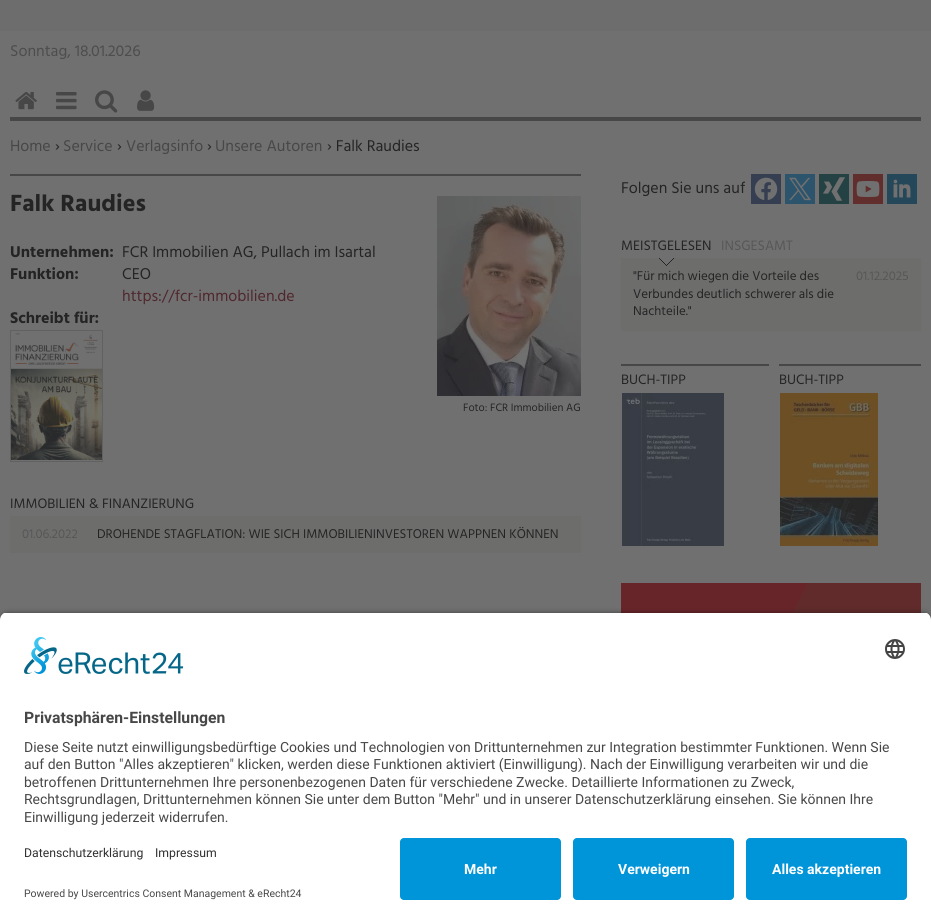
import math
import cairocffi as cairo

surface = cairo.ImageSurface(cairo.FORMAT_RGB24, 931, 924)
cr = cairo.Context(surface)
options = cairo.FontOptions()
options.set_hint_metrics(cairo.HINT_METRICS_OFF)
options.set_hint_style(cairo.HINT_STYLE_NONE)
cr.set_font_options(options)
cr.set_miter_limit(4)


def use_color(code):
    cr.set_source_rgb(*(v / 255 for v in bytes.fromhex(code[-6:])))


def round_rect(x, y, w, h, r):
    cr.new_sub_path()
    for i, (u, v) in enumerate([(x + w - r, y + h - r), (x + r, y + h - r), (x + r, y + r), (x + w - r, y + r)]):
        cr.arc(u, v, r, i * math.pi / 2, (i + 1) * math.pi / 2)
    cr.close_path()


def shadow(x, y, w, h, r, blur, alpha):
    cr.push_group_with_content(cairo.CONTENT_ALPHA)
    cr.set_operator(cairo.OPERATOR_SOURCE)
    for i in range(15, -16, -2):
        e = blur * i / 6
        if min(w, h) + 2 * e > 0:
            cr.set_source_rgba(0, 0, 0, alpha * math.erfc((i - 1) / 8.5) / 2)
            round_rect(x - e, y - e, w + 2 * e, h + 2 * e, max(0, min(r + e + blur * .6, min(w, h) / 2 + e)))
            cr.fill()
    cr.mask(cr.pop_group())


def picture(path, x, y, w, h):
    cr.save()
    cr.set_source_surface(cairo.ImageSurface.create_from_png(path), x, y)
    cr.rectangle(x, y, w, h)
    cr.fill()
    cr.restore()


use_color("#6d6d6d")
cr.paint()
use_color("#707070")
cr.rectangle(0, 31, 931, 589)
cr.fill()
cr.select_font_face("Hind")
cr.set_font_size(16)
use_color("#4d4d4d")
cr.move_to(10, 56)
cr.show_text("Sonntag, 18.01.2026")
use_color("#474747")
cr.rectangle(10, 117, 911, 4)
cr.fill()
picture("img1.png", 15, 92, 22, 18)
picture("img2.png", 56, 92, 21, 18)
picture("img3.png", 95, 90, 23, 23)
picture("img4.png", 137, 90, 18, 21)
cr.move_to(10, 151)
cr.show_text("Home")
use_color("#242424")
cr.move_to(55, 151)
cr.show_text("›")
use_color("#474747")
cr.move_to(63, 151)
cr.show_text("Service")
use_color("#242424")
cr.move_to(117, 151)
cr.show_text("›")
use_color("#474747")
cr.move_to(126, 151)
cr.show_text("Verlagsinfo")
use_color("#242424")
cr.move_to(207, 151)
cr.show_text("›")
use_color("#474747")
cr.move_to(215, 151)
cr.show_text("Unsere Autoren")
use_color("#242424")
cr.move_to(327, 151)
cr.show_text("› Falk Raudies")
use_color("#474747")
cr.rectangle(10, 174, 571, 2)
cr.fill()
cr.select_font_face("Hind", cairo.FONT_SLANT_NORMAL, cairo.FONT_WEIGHT_BOLD)
cr.set_font_size(24)
use_color("#242424")
cr.move_to(10, 211)
cr.show_text("Falk Raudies")
cr.set_font_size(16)
cr.move_to(10, 257)
cr.show_text("Unternehmen:")
cr.select_font_face("Hind")
cr.move_to(122, 257)
cr.show_text("FCR Immobilien AG, Pullach im Isartal")
cr.select_font_face("Hind", cairo.FONT_SLANT_NORMAL, cairo.FONT_WEIGHT_BOLD)
cr.move_to(10, 279)
cr.show_text("Funktion:")
cr.select_font_face("Hind")
cr.move_to(122, 279)
cr.show_text("CEO")
use_color("#50272e")
cr.move_to(122, 301)
cr.show_text("https://fcr-immobilien.de")
picture("img5.png", 437, 196, 144, 200)
cr.set_font_size(11)
use_color("#242424")
cr.move_to(463, 411)
cr.show_text("Foto: FCR Immobilien AG")
cr.select_font_face("Hind", cairo.FONT_SLANT_NORMAL, cairo.FONT_WEIGHT_BOLD)
cr.set_font_size(16)
cr.move_to(10, 323)
cr.show_text("Schreibt für:")
picture("img6.png", 11, 333, 91, 127)
cr.rectangle(10.5, 330.5, 92, 131)
use_color("#616161")
cr.set_line_width(1)
cr.stroke()
cr.select_font_face("Hind")
cr.set_font_size(14)
use_color("#242424")
cr.move_to(10, 508)
cr.show_text("IMMOBILIEN & FINANZIERUNG")
use_color("#6d6d6c")
cr.rectangle(10, 516, 571, 37)
cr.fill()
cr.set_font_size(13)
use_color("#575757")
cr.move_to(22, 538)
cr.show_text("01.06.2022")
use_color("#242424")
cr.move_to(97, 538)
cr.show_text("DROHENDE STAGFLATION: WIE SICH IMMOBILIENINVESTOREN WAPPNEN KÖNNEN")
cr.set_font_size(16)
cr.move_to(621, 193)
cr.show_text("Folgen Sie uns auf")
use_color("#353f51")
cr.rectangle(751, 174, 30, 30)
cr.fill()
picture("img7.png", 754, 177, 24, 24)
use_color("#2c546c")
cr.rectangle(785, 174, 30, 30)
cr.fill()
picture("img8.png", 789, 177, 22, 24)
use_color("#244243")
cr.rectangle(819, 174, 30, 30)
cr.fill()
picture("img9.png", 823, 177, 22, 24)
use_color("#612d2d")
cr.rectangle(853, 174, 30, 30)
cr.fill()
picture("img10.png", 856, 181, 24, 16)
use_color("#24475a")
cr.rectangle(887, 174, 30, 30)
cr.fill()
picture("img11.png", 893, 179, 18, 19)
use_color("#6d6d6c")
cr.rectangle(621, 258, 300, 73)
cr.fill()
picture("img12.png", 659, 258, 15, 8)
cr.set_font_size(14)
use_color("#242424")
cr.move_to(621, 250)
cr.show_text("MEISTGELESEN")
use_color("#575757")
cr.move_to(721, 250)
cr.show_text("INSGESAMT")
cr.set_font_size(13)
use_color("#242424")
cr.move_to(633, 280)
cr.show_text("\"Für mich wiegen die Vorteile des")
cr.move_to(633, 298)
cr.show_text("Verbundes deutlich schwerer als die")
cr.move_to(633, 315)
cr.show_text("Nachteile.\"")
use_color("#575757")
cr.move_to(856, 280)
cr.show_text("01.12.2025")
use_color("#474747")
cr.rectangle(621, 364, 148, 2)
cr.fill()
cr.set_font_size(14)
use_color("#242424")
cr.move_to(621, 384)
cr.show_text("BUCH-TIPP")
picture("img13.png", 622, 393, 102, 153)
use_color("#474747")
cr.rectangle(779, 364, 142, 2)
cr.fill()
use_color("#242424")
cr.move_to(779, 384)
cr.show_text("BUCH-TIPP")
picture("img14.png", 780, 393, 98, 153)
picture("img15.png", 621, 583, 300, 30)
use_color("#000000")
shadow(0, 615, 931, 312, 8, 3.5, 0.8)
cr.save()
cr.new_path()
cr.move_to(8, 612)
cr.line_to(923, 612)
cr.curve_to(927.5, 612, 931, 615.5, 931, 620)
cr.line_to(931, 830)
cr.line_to(0, 830)
cr.line_to(0, 620)
cr.curve_to(0, 615.5, 3.5, 612, 8, 612)
cr.close_path()
cr.clip()
use_color("#ffffff")
cr.rectangle(0, 613, 931, 217)
cr.fill()
cr.restore()
picture("img16.png", 24, 637, 160, 37)
picture("img17.png", 885, 639, 20, 20)
cr.select_font_face("Roboto", cairo.FONT_SLANT_NORMAL, cairo.FONT_WEIGHT_BOLD)
cr.set_font_size(15.75)
use_color("#474747")
cr.move_to(24, 723)
cr.show_text("Privatsphären-Einstellungen")
cr.select_font_face("Roboto")
cr.set_font_size(14)
cr.move_to(24, 752)
cr.show_text("Diese Seite nutzt einwilligungsbedürftige Cookies und Technologien von Drittunternehmen zur Integration bestimmter Funktionen. Wenn Sie")
cr.move_to(24, 769)
cr.show_text("auf den Button \"Alles akzeptieren\" klicken, werden diese Funktionen aktiviert (Einwilligung). Nach der Einwilligung verarbeiten wir und die")
cr.move_to(24, 787)
cr.show_text("betroffenen Drittunternehmen Ihre personenbezogenen Daten für verschiedene Zwecke. Detaillierte Informationen zu Zweck,")
cr.move_to(24, 804)
cr.show_text("Rechtsgrundlagen, Drittunternehmen können Sie unter dem Button \"Mehr\" und in unserer Datenschutzerklärung einsehen. Sie können Ihre")
cr.move_to(24, 822)
cr.show_text("Einwilligung jederzeit widerrufen.")
use_color("#ffffff")
cr.rectangle(0, 830, 931, 94)
cr.fill()
cr.set_font_size(12.25)
use_color("#303030")
cr.move_to(24, 857)
cr.show_text("Datenschutzerklärung")
cr.move_to(155, 857)
cr.show_text("Impressum")
cr.set_font_size(10.5)
use_color("#474747")
cr.move_to(24, 897)
cr.show_text("Powered by Usercentrics Consent Management & eRecht24")
use_color("#0094d8")
round_rect(400, 838, 161, 62, 4)
cr.fill()
cr.select_font_face("Roboto", cairo.FONT_SLANT_NORMAL, cairo.FONT_WEIGHT_BOLD)
cr.set_font_size(14)
use_color("#ffffff")
cr.move_to(464, 874)
cr.show_text("Mehr")
use_color("#0094d8")
round_rect(573, 838, 161, 62, 4)
cr.fill()
use_color("#ffffff")
cr.move_to(618, 874)
cr.show_text("Verweigern")
use_color("#0094d8")
round_rect(746, 838, 161, 62, 4)
cr.fill()
use_color("#ffffff")
cr.move_to(772, 874)
cr.show_text("Alles akzeptieren")
surface.write_to_png("result.png")
